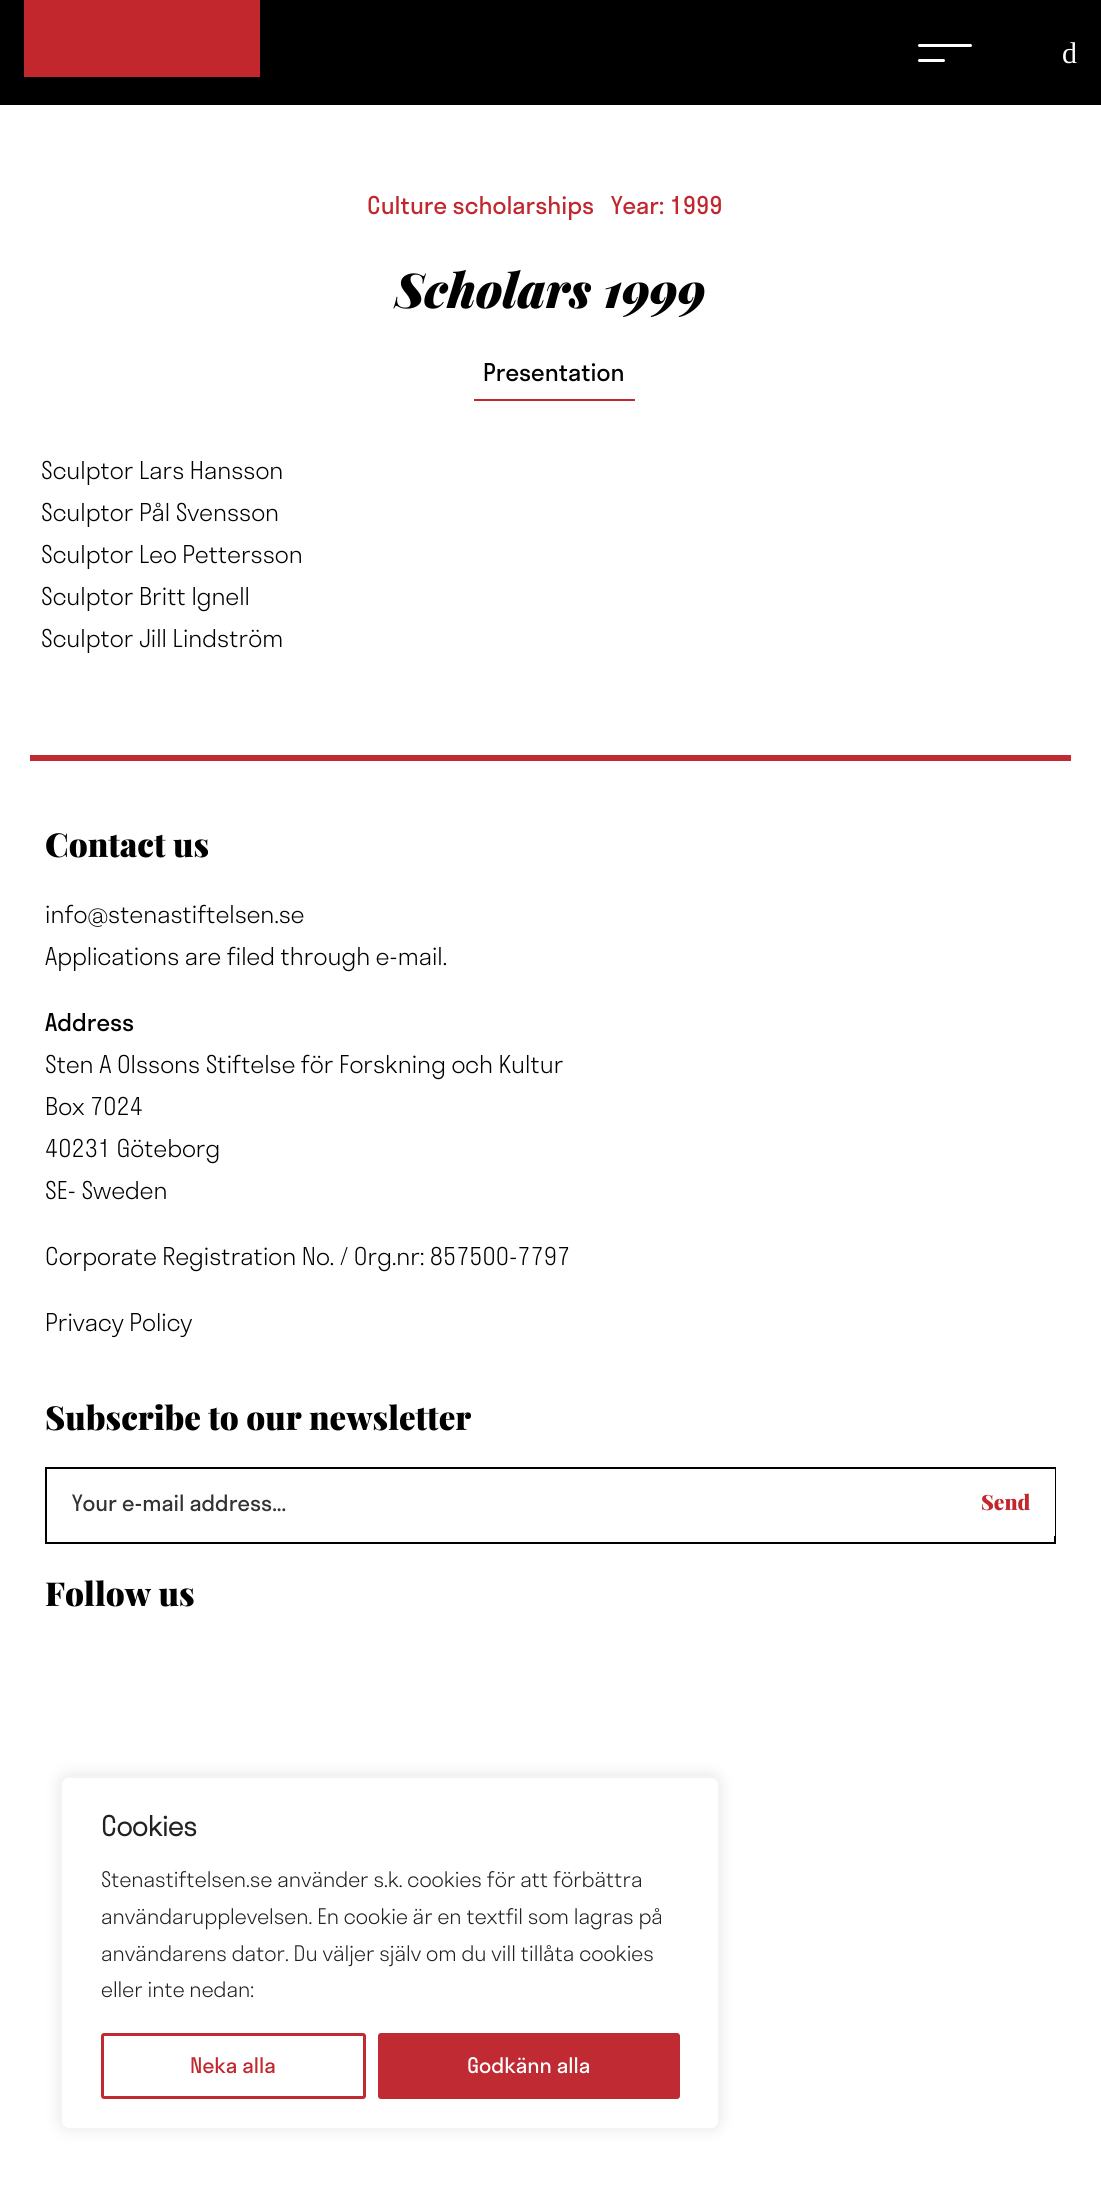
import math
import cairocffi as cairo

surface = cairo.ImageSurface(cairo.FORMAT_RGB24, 1101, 2190)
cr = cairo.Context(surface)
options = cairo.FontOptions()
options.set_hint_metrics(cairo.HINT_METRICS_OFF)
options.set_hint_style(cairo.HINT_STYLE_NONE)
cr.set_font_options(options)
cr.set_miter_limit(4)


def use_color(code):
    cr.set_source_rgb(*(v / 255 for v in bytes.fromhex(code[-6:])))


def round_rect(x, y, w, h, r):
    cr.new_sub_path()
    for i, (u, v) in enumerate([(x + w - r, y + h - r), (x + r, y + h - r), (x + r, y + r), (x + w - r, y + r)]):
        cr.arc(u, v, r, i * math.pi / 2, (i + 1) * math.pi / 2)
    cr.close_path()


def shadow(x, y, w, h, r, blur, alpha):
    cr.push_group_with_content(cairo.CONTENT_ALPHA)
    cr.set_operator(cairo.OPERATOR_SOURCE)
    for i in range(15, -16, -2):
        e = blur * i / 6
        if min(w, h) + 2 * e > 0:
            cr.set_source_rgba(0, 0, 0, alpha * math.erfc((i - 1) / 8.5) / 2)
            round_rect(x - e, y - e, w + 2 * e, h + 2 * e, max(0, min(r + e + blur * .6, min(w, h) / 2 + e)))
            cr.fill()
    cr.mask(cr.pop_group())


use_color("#ffffff")
cr.paint()
use_color("#000000")
cr.rectangle(0, 0, 1101, 105)
cr.fill()
use_color("#c1272d")
cr.rectangle(24, 0, 236, 77)
cr.fill()
use_color("#ffffff")
round_rect(918, 44, 54, 3, 1.5)
cr.fill()
round_rect(918, 59, 27, 3, 1.5)
cr.fill()
cr.select_font_face("Liberation Serif")
cr.set_font_size(30)
cr.move_to(1062, 63)
cr.show_text("d")
cr.select_font_face("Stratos")
cr.set_font_size(24)
use_color("#c1272d")
cr.move_to(367, 214)
cr.show_text("Culture scholarships")
cr.move_to(611, 214)
cr.show_text("Year: 1999")
cr.select_font_face("Playfair Display Black", cairo.FONT_SLANT_ITALIC)
cr.set_font_size(48)
use_color("#000000")
cr.move_to(395, 308)
cr.show_text("Scholars 1999")
use_color("#c1272d")
cr.rectangle(474, 399, 161, 2)
cr.fill()
cr.select_font_face("Stratos")
cr.set_font_size(24)
use_color("#000000")
cr.move_to(483, 381)
cr.show_text("Presentation")
cr.select_font_face("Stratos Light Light")
cr.move_to(41, 479)
cr.show_text("Sculptor Lars Hansson")
cr.move_to(41, 521)
cr.show_text("Sculptor Pål Svensson")
cr.move_to(41, 563)
cr.show_text("Sculptor Leo Pettersson")
cr.move_to(41, 605)
cr.show_text("Sculptor Britt Ignell")
cr.move_to(41, 647)
cr.show_text("Sculptor Jill Lindström")
use_color("#c02a32")
cr.rectangle(30, 755, 1041, 6)
cr.fill()
cr.select_font_face("Playfair Display Black")
cr.set_font_size(33)
use_color("#000000")
cr.move_to(45, 857)
cr.show_text("Contact us")
cr.select_font_face("Stratos Light Light")
cr.set_font_size(24)
cr.move_to(45, 923)
cr.show_text("info@stenastiftelsen.se")
cr.move_to(45, 965)
cr.show_text("Applications are filed through e-mail.")
cr.select_font_face("Stratos")
cr.move_to(45, 1031)
cr.show_text("Address")
cr.select_font_face("Stratos Light Light")
cr.move_to(45, 1073)
cr.show_text("Sten A Olssons Stiftelse för Forskning och Kultur")
cr.move_to(45, 1115)
cr.show_text("Box 7024")
cr.move_to(45, 1157)
cr.show_text("40231 Göteborg")
cr.move_to(45, 1199)
cr.show_text("SE- Sweden")
cr.move_to(45, 1265)
cr.show_text("Corporate Registration No. / Org.nr: 857500-7797")
cr.move_to(45, 1331)
cr.show_text("Privacy Policy")
cr.select_font_face("Playfair Display Black")
cr.set_font_size(33)
cr.move_to(45, 1430)
cr.show_text("Subscribe to our newsletter")
cr.rectangle(46, 1468, 1009, 75)
cr.stroke()
use_color("#ffffff")
cr.rectangle(1054, 1469, 1, 67)
cr.fill()
cr.select_font_face("Stratos")
cr.set_font_size(22)
use_color("#333333")
cr.move_to(72, 1511)
cr.show_text("Your e-mail address...")
cr.select_font_face("Playfair Display Black")
cr.set_font_size(21)
use_color("#c1272d")
cr.move_to(981, 1510)
cr.show_text("Send")
cr.set_font_size(33)
use_color("#000000")
cr.move_to(45, 1606)
cr.show_text("Follow us")
use_color("#acabab")
shadow(60, 1775, 660, 354, 9, 7.5, 0.3)
use_color("#ffffff")
round_rect(61, 1777, 658, 352, 8)
cr.fill_preserve()
use_color("#f4f4f4")
cr.stroke()
cr.select_font_face("Stratos Light", cairo.FONT_SLANT_NORMAL, cairo.FONT_WEIGHT_BOLD)
cr.set_font_size(27)
use_color("#212121")
cr.move_to(101, 1836)
cr.show_text("Cookies")
cr.select_font_face("Stratos Light Light")
cr.set_font_size(21)
cr.move_to(101, 1887)
cr.show_text("Stenastiftelsen.se använder s.k. cookies för att förbättra")
cr.move_to(101, 1924)
cr.show_text("användarupplevelsen. En cookie är en textfil som lagras på")
cr.move_to(101, 1961)
cr.show_text("användarens dator. Du väljer själv om du vill tillåta cookies")
cr.move_to(101, 1997)
cr.show_text("eller inte nedan:")
round_rect(102.5, 2034.5, 262, 63, 1.5)
use_color("#c02a32")
cr.set_line_width(3)
cr.stroke()
cr.select_font_face("Stratos")
use_color("#c1272d")
cr.move_to(190, 2073)
cr.show_text("Neka alla")
use_color("#c02a32")
round_rect(379.5, 2034.5, 299, 63, 1.5)
cr.fill_preserve()
cr.stroke()
use_color("#ffffff")
cr.move_to(467, 2073)
cr.show_text("Godkänn alla")
surface.write_to_png("result.png")
